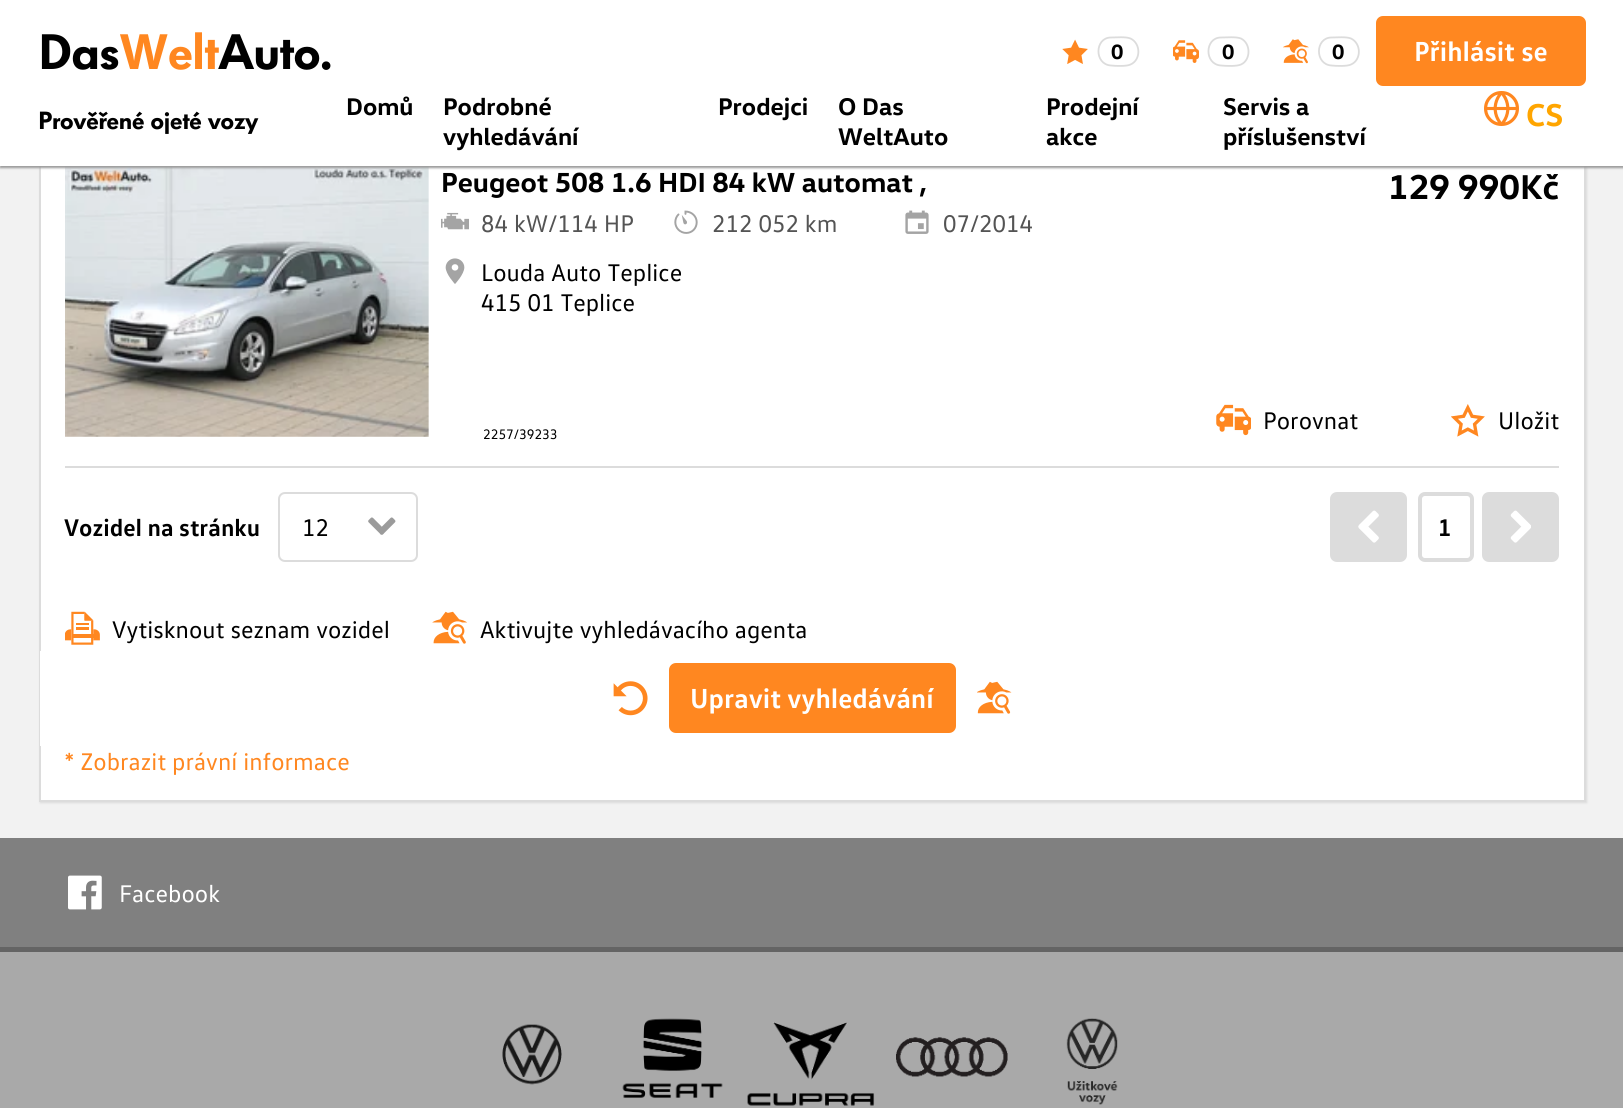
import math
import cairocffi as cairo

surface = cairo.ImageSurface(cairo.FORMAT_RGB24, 1623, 1108)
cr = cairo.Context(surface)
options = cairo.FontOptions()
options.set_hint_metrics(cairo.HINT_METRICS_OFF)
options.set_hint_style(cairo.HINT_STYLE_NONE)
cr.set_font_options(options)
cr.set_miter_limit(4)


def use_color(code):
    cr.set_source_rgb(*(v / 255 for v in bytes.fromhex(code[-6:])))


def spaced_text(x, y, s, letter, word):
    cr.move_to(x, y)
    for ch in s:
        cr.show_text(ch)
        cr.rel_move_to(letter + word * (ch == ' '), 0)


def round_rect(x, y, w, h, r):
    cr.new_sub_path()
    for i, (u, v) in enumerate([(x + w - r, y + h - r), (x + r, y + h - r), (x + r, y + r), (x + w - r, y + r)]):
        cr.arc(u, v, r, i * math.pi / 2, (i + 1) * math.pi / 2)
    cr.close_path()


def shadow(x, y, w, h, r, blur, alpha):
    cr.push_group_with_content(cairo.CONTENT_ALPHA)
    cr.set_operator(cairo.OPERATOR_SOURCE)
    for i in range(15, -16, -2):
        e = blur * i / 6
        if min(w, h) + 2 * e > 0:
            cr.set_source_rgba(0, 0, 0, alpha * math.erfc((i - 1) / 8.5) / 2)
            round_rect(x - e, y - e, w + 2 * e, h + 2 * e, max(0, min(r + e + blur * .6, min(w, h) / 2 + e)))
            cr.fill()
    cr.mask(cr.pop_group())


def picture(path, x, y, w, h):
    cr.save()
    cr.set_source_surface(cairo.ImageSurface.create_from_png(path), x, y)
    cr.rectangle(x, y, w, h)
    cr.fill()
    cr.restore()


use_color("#f2f2f2")
cr.paint()
use_color("#dcdcdc")
shadow(40, -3, 1547, 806, 0, 1, 1)
use_color("#ffffff")
cr.rectangle(41, 166, 1543, 634)
cr.fill()
cr.rectangle(40, -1, 1545, 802)
use_color("#dcdcdc")
cr.stroke()
picture("img6.png", 66, 324, 1, 20)
picture("img5.png", 65, 166, 364, 271)
use_color("#9b9b9b")
shadow(0, 2, 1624, 166, 0, 1, 1)
use_color("#ffffff")
cr.rectangle(0, 0, 1623, 166)
cr.fill()
cr.select_font_face("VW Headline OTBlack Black")
cr.set_font_size(49)
use_color("#000000")
spaced_text(38, 69, "Das", -1, 0)
use_color("#ff8720")
spaced_text(119, 69, "Welt", -1, 0)
use_color("#000000")
spaced_text(218, 69, "Auto.", -1, 0)
cr.set_font_size(24.5)
spaced_text(38, 129, "Prověřené ojeté vozy", -0.5, 0)
picture("img1.png", 1062, 39, 26, 25)
cr.new_path()
cr.move_to(1111, 37.5)
cr.curve_to(1116.5, 37.5, 1125.5, 36.5, 1130.5, 38.5)
cr.curve_to(1141, 43.5, 1141, 60, 1130.5, 64.5)
cr.curve_to(1126.5, 66.5, 1115.5, 66, 1111, 65.5)
cr.curve_to(1094, 64.5, 1094.5, 37.5, 1111, 37.5)
cr.close_path()
use_color("#dcdcdc")
cr.set_line_width(1.8)
cr.stroke()
cr.select_font_face("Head", cairo.FONT_SLANT_NORMAL, cairo.FONT_WEIGHT_BOLD)
cr.set_font_size(21)
use_color("#000000")
cr.move_to(1111, 59)
cr.show_text("0")
picture("img2.png", 1173, 40, 26, 23)
cr.new_path()
cr.move_to(1221, 37.5)
cr.curve_to(1226.5, 37.5, 1236, 36.5, 1241, 38.5)
cr.curve_to(1251, 43.5, 1251, 60, 1241, 64.5)
cr.curve_to(1236.5, 66.5, 1226, 66, 1221, 65.5)
cr.curve_to(1204, 64.5, 1204.5, 37.5, 1221, 37.5)
cr.close_path()
use_color("#dcdcdc")
cr.stroke()
use_color("#000000")
cr.move_to(1222, 59)
cr.show_text("0")
picture("img3.png", 1283, 39, 26, 25)
cr.new_path()
cr.move_to(1331.5, 37.5)
cr.curve_to(1337, 37.5, 1346, 36.5, 1351, 38.5)
cr.curve_to(1361.5, 43.5, 1361.5, 60, 1351, 64.5)
cr.curve_to(1347, 66.5, 1336, 66, 1331.5, 65.5)
cr.curve_to(1314.5, 64.5, 1315, 37.5, 1331.5, 37.5)
cr.close_path()
use_color("#dcdcdc")
cr.stroke()
use_color("#000000")
cr.move_to(1332, 59)
cr.show_text("0")
use_color("#ff8720")
round_rect(1378, 18, 206, 66, 5)
cr.fill_preserve()
cr.set_line_width(4)
cr.stroke()
cr.select_font_face("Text", cairo.FONT_SLANT_NORMAL, cairo.FONT_WEIGHT_BOLD)
cr.set_font_size(28)
use_color("#ffffff")
cr.move_to(1414, 61)
cr.show_text("Přihlásit se")
cr.select_font_face("Head", cairo.FONT_SLANT_NORMAL, cairo.FONT_WEIGHT_BOLD)
cr.set_font_size(24.5)
use_color("#000000")
cr.move_to(346, 115)
cr.show_text("Domů")
cr.move_to(443, 115)
cr.show_text("Podrobné")
cr.move_to(443, 145)
cr.show_text("vyhledávání")
cr.move_to(718, 115)
cr.show_text("Prodejci")
cr.move_to(838, 115)
cr.show_text("O Das")
cr.move_to(838, 145)
cr.show_text("WeltAuto")
cr.move_to(1046, 115)
cr.show_text("Prodejní")
cr.move_to(1046, 145)
cr.show_text("akce")
cr.move_to(1223, 115)
cr.show_text("Servis a")
cr.move_to(1223, 145)
cr.show_text("příslušenství")
picture("img4.png", 1484, 91, 35, 35)
cr.set_font_size(32)
use_color("#ffa500")
cr.move_to(1526, 126)
cr.show_text("CS")
use_color("#dcdcdc")
cr.rectangle(65, 466, 1494, 2)
cr.fill()
cr.set_font_size(28)
use_color("#000000")
cr.move_to(441, 192)
cr.show_text("Peugeot 508 1.6 HDI 84 kW automat ,")
cr.set_font_size(35)
cr.move_to(1388, 199)
cr.show_text("129 990Kč")
picture("img7.png", 441, 212, 28, 18)
cr.select_font_face("Text")
cr.set_font_size(24.5)
use_color("#545454")
cr.move_to(481, 232)
cr.show_text("84 kW/114 HP")
picture("img8.png", 674, 210, 24, 24)
cr.move_to(712, 232)
cr.show_text("212 052 km")
picture("img9.png", 905, 210, 24, 24)
cr.move_to(943, 232)
cr.show_text("07/2014")
picture("img10.png", 445, 258, 20, 26)
use_color("#000000")
cr.move_to(481, 281)
cr.show_text("Louda Auto Teplice")
cr.move_to(481, 311)
cr.show_text("415 01 Teplice")
picture("img11.png", 1216, 404, 35, 32)
cr.move_to(1263, 429)
cr.show_text("Porovnat")
picture("img12.png", 1451, 404, 34, 33)
cr.move_to(1498, 429)
cr.show_text("Uložit")
cr.set_font_size(14)
cr.move_to(483, 439)
cr.show_text("2257/39233")
cr.select_font_face("Text", cairo.FONT_SLANT_NORMAL, cairo.FONT_WEIGHT_BOLD)
cr.set_font_size(24.5)
cr.move_to(64, 536)
cr.show_text("Vozidel na stránku")
picture("img13.png", 368, 517, 28, 18)
round_rect(279, 493, 138, 68, 6)
use_color("#dcdcdc")
cr.set_line_width(2)
cr.stroke()
cr.select_font_face("Text")
use_color("#000000")
cr.move_to(302, 536)
cr.show_text("12")
use_color("#dcdcdc")
round_rect(1330, 492, 77, 70, 7)
cr.fill()
picture("img14.png", 1358, 510, 21, 33)
round_rect(1420, 494, 52, 66, 5)
cr.set_line_width(4)
cr.stroke()
cr.select_font_face("Text", cairo.FONT_SLANT_NORMAL, cairo.FONT_WEIGHT_BOLD)
use_color("#000000")
cr.move_to(1438, 536)
cr.show_text("1")
use_color("#dcdcdc")
round_rect(1482, 492, 77, 70, 7)
cr.fill()
picture("img15.png", 1510, 510, 21, 33)
picture("img16.png", 65, 611, 35, 34)
cr.select_font_face("Text")
use_color("#000000")
cr.move_to(112, 638)
cr.show_text("Vytisknout seznam vozidel")
picture("img17.png", 432, 611, 35, 33)
cr.move_to(480, 638)
cr.show_text("Aktivujte vyhledávacího agenta")
use_color("#ffffff")
cr.rectangle(40, 651, 1, 95)
cr.fill()
picture("img18.png", 613, 681, 35, 35)
use_color("#ff8720")
round_rect(671, 665, 283, 66, 5)
cr.fill_preserve()
cr.stroke()
cr.select_font_face("Text", cairo.FONT_SLANT_NORMAL, cairo.FONT_WEIGHT_BOLD)
cr.set_font_size(28)
use_color("#ffffff")
cr.move_to(690, 708)
cr.show_text("Upravit vyhledávání")
picture("img19.png", 977, 681, 35, 33)
cr.select_font_face("Text")
cr.set_font_size(24.5)
use_color("#ff8720")
cr.move_to(64, 770)
cr.show_text("* Zobrazit právní informace")
use_color("#808080")
cr.rectangle(0, 838, 1623, 109)
cr.fill()
use_color("#646464")
cr.rectangle(0, 947, 1623, 5)
cr.fill()
picture("img20.png", 68, 875, 34, 35)
use_color("#ffffff")
cr.move_to(119, 902)
cr.show_text("Facebook")
use_color("#a9a9a9")
cr.rectangle(0, 952, 1623, 156)
cr.fill()
picture("img21.png", 502, 1024, 60, 61)
picture("img22.png", 622, 1018, 101, 80)
picture("img23.png", 747, 1022, 128, 84)
picture("img24.png", 896, 1037, 112, 40)
picture("img25.png", 1066, 1018, 52, 87)
surface.write_to_png("result.png")
